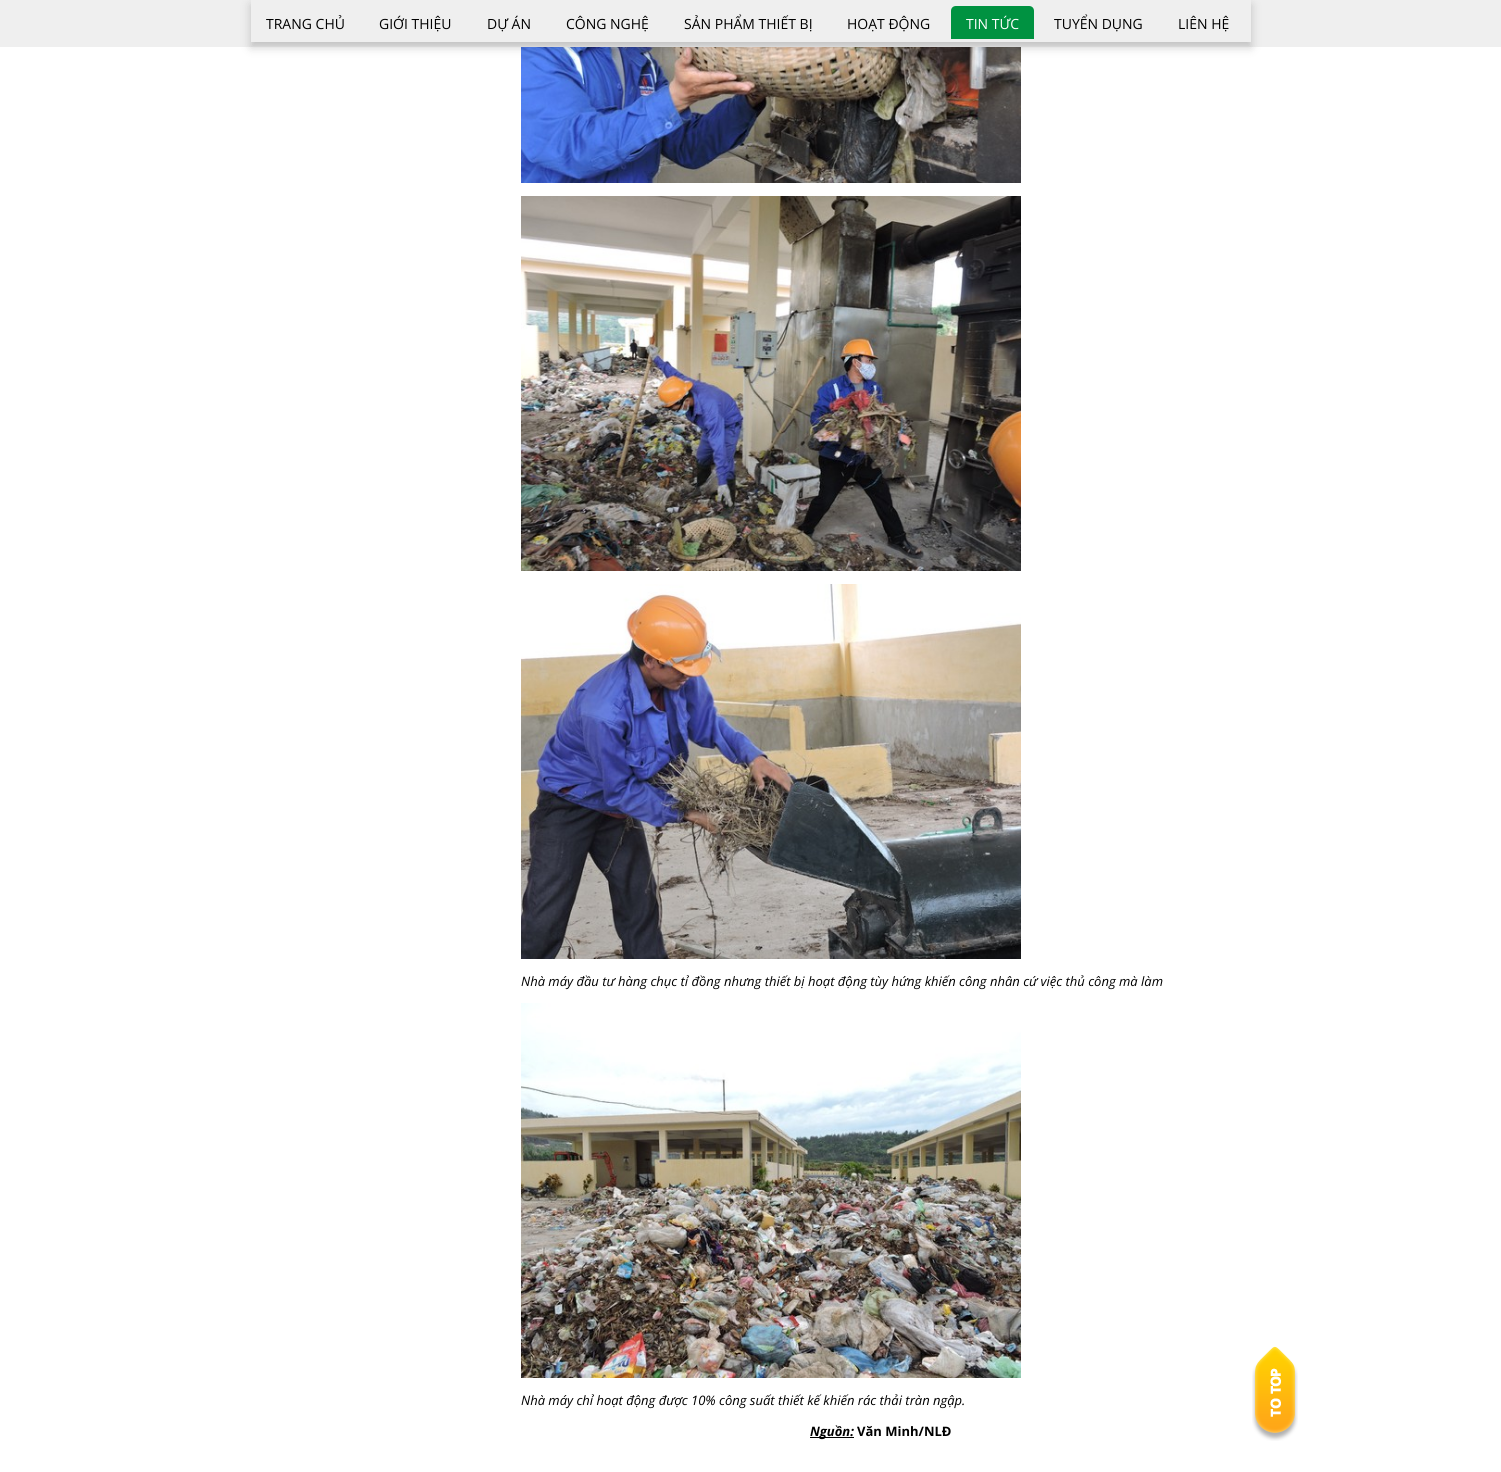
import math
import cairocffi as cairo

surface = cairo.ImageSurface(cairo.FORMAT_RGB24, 1501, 1472)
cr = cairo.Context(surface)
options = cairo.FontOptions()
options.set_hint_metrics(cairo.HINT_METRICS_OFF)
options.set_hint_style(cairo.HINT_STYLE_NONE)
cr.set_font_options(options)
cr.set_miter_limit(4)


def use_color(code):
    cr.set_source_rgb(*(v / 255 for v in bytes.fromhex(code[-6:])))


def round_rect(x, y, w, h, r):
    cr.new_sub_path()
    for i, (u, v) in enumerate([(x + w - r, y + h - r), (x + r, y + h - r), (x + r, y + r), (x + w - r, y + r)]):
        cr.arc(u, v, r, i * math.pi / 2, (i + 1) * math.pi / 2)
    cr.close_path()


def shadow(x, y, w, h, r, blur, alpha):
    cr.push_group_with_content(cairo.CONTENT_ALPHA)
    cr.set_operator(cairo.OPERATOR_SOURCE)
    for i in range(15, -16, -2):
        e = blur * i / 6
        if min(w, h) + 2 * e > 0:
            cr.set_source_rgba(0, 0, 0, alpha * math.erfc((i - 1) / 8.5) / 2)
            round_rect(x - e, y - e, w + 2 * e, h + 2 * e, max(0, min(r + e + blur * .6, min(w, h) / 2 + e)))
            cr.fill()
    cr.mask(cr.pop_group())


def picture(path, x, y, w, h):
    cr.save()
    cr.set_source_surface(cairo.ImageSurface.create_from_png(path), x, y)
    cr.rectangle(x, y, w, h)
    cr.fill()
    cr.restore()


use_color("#ffffff")
cr.paint()
use_color("#efefef")
cr.rectangle(0, 0, 1501, 47)
cr.fill()
picture("img1.png", 521, 47, 500, 136)
cr.save()
cr.set_fill_rule(cairo.FILL_RULE_EVEN_ODD)
cr.new_path()
cr.move_to(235, 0)
cr.line_to(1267, 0)
cr.line_to(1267, 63)
cr.line_to(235, 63)
cr.close_path()
cr.move_to(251, 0)
cr.line_to(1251, 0)
cr.line_to(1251, 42)
cr.line_to(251, 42)
cr.close_path()
cr.clip()
use_color("#000000")
shadow(251, 5, 1000, 42, 0, 5, 0.2)
cr.restore()
cr.select_font_face("Open Sans")
cr.set_font_size(14)
use_color("#000000")
cr.move_to(266, 29)
cr.show_text("TRANG CHỦ")
cr.move_to(379, 29)
cr.show_text("GIỚI THIỆU")
cr.move_to(487, 29)
cr.show_text("DỰ ÁN")
cr.move_to(566, 29)
cr.show_text("CÔNG NGHỆ")
cr.move_to(684, 29)
cr.show_text("SẢN PHẨM THIẾT BỊ")
cr.move_to(847, 29)
cr.show_text("HOẠT ĐỘNG")
use_color("#009241")
cr.new_path()
cr.move_to(956, 6)
cr.line_to(1029, 6)
cr.curve_to(1032, 6, 1034, 8, 1034, 11)
cr.line_to(1034, 39)
cr.line_to(951, 39)
cr.line_to(951, 11)
cr.curve_to(951, 8, 953, 6, 956, 6)
cr.close_path()
cr.fill()
use_color("#ffffff")
cr.move_to(966, 29)
cr.show_text("TIN TỨC")
use_color("#000000")
cr.move_to(1054, 29)
cr.show_text("TUYỂN DỤNG")
cr.move_to(1178, 29)
cr.show_text("LIÊN HỆ")
picture("img2.png", 521, 196, 500, 375)
picture("img3.png", 521, 584, 500, 375)
cr.select_font_face("Open Sans", cairo.FONT_SLANT_ITALIC)
cr.set_font_size(13)
cr.move_to(521, 986)
cr.show_text("Nhà máy đầu tư hàng chục tỉ đồng nhưng thiết bị hoạt động tùy hứng khiến công nhân cứ việc thủ công mà làm")
picture("img4.png", 521, 1003, 500, 375)
cr.move_to(521, 1405)
cr.show_text("Nhà máy chỉ hoạt động được 10% công suất thiết kế khiến rác thải tràn ngập.")
cr.rectangle(810, 1437, 44, 1)
cr.fill()
cr.select_font_face("Open Sans", cairo.FONT_SLANT_ITALIC, cairo.FONT_WEIGHT_BOLD)
cr.move_to(810, 1436)
cr.show_text("Nguồn:")
cr.select_font_face("Open Sans", cairo.FONT_SLANT_NORMAL, cairo.FONT_WEIGHT_BOLD)
cr.move_to(857, 1436)
cr.show_text("Văn Minh/NLĐ")
picture("img5.png", 1252, 1346, 46, 95)
surface.write_to_png("result.png")
